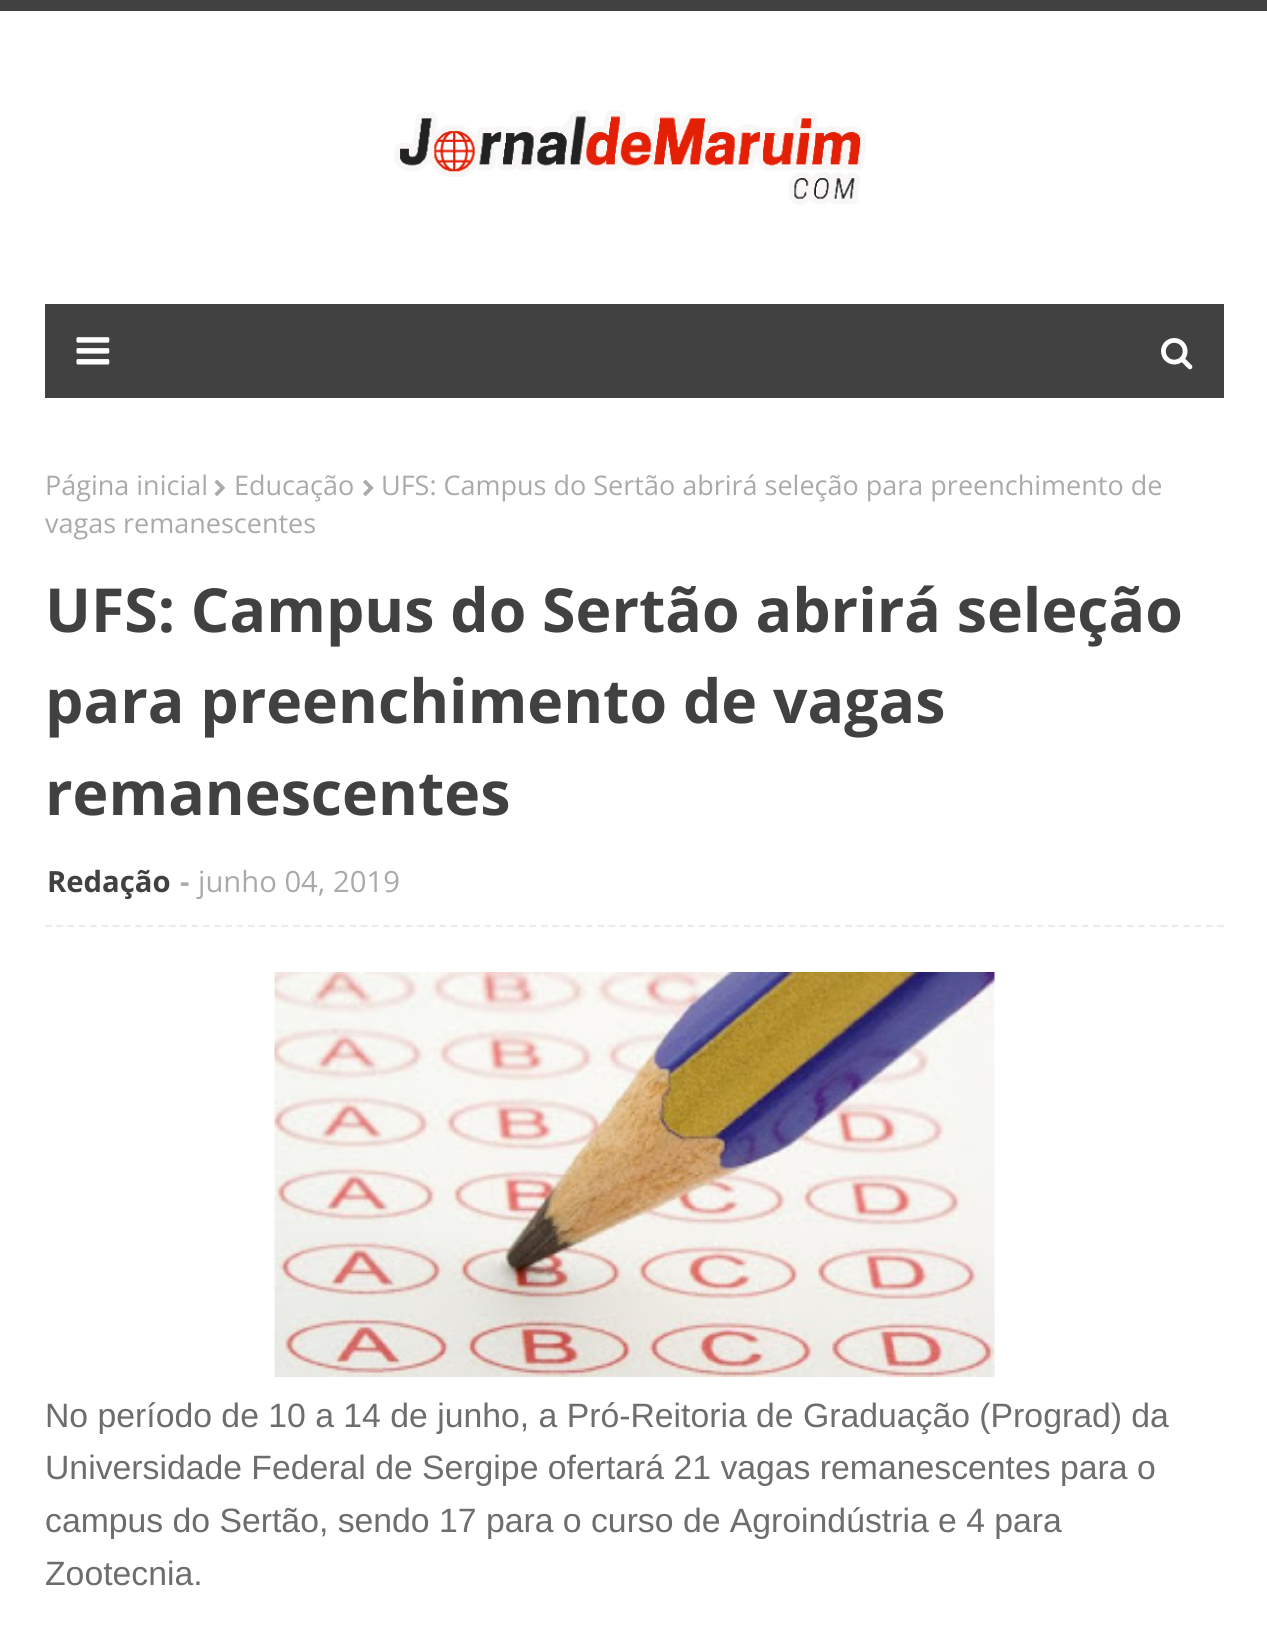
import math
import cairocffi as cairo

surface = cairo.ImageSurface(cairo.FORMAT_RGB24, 1267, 1652)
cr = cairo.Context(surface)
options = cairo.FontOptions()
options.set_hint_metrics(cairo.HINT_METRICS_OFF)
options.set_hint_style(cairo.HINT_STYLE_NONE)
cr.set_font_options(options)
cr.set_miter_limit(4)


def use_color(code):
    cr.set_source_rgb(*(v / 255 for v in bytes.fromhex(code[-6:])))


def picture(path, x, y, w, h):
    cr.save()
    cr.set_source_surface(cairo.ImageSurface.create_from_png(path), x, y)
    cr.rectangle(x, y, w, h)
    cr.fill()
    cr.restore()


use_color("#ffffff")
cr.paint()
use_color("#414141")
cr.rectangle(0, 0, 1267, 11)
cr.fill()
picture("img1.png", 394, 110, 472, 95)
cr.rectangle(45, 304, 1179, 94)
cr.fill()
picture("img2.png", 76, 337, 34, 28)
picture("img3.png", 1161, 338, 32, 32)
cr.select_font_face("Open Sans")
cr.set_font_size(27)
use_color("#aaaaaa")
cr.move_to(45, 495)
cr.show_text("Página inicial")
picture("img4.png", 214, 480, 11, 16)
cr.move_to(234, 495)
cr.show_text("Educação")
picture("img5.png", 363, 479, 11, 17)
cr.move_to(381, 495)
cr.show_text("UFS: Campus do Sertão abrirá seleção para preenchimento de")
cr.move_to(45, 533)
cr.show_text("vagas remanescentes")
cr.select_font_face("Open Sans", cairo.FONT_SLANT_NORMAL, cairo.FONT_WEIGHT_BOLD)
cr.set_font_size(60.75)
use_color("#414141")
cr.move_to(45, 632)
cr.show_text("UFS: Campus do Sertão abrirá seleção")
cr.move_to(45, 723)
cr.show_text("para preenchimento de vagas")
cr.move_to(45, 815)
cr.show_text("remanescentes")
cr.set_font_size(29.25)
cr.move_to(47, 892)
cr.show_text("Redação")
use_color("#aaaaaa")
cr.move_to(180, 892)
cr.show_text("-")
cr.select_font_face("Open Sans")
cr.move_to(198, 892)
cr.show_text("junho 04, 2019")
cr.new_path()
cr.move_to(45, 926)
cr.line_to(1224, 926)
use_color("#ebebeb")
cr.set_line_width(2.2)
cr.set_dash([6.75, 4.52])
cr.stroke()
picture("img6.png", 274, 972, 721, 405)
cr.select_font_face("Liberation Sans")
cr.set_font_size(33.75)
use_color("#6d6d6d")
cr.move_to(45, 1427)
cr.show_text("No período de 10 a 14 de junho, a Pró-Reitoria de Graduação (Prograd) da")
cr.move_to(45, 1479)
cr.show_text("Universidade Federal de Sergipe ofertará 21 vagas remanescentes para o")
cr.move_to(45, 1532)
cr.show_text("campus do Sertão, sendo 17 para o curso de Agroindústria e 4 para")
cr.move_to(45, 1585)
cr.show_text("Zootecnia.")
surface.write_to_png("result.png")
